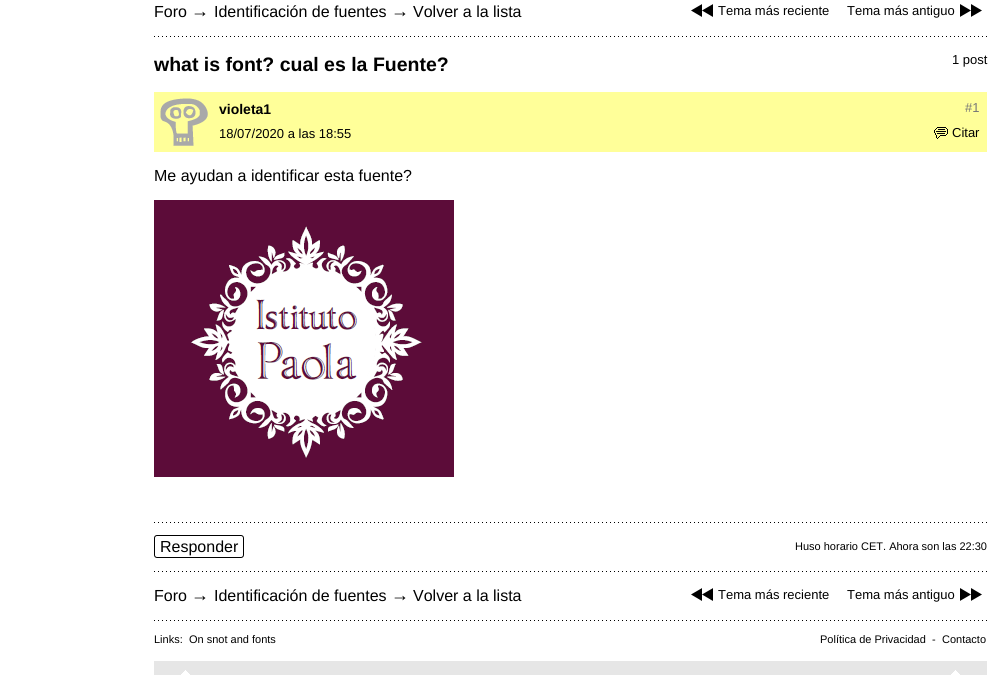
import math
import cairocffi as cairo

surface = cairo.ImageSurface(cairo.FORMAT_RGB24, 1001, 675)
cr = cairo.Context(surface)
options = cairo.FontOptions()
options.set_hint_metrics(cairo.HINT_METRICS_OFF)
options.set_hint_style(cairo.HINT_STYLE_NONE)
cr.set_font_options(options)
cr.set_miter_limit(4)


def use_color(code):
    cr.set_source_rgb(*(v / 255 for v in bytes.fromhex(code[-6:])))


def round_rect(x, y, w, h, r):
    cr.new_sub_path()
    for i, (u, v) in enumerate([(x + w - r, y + h - r), (x + r, y + h - r), (x + r, y + r), (x + w - r, y + r)]):
        cr.arc(u, v, r, i * math.pi / 2, (i + 1) * math.pi / 2)
    cr.close_path()


def picture(path, x, y, w, h):
    cr.save()
    cr.set_source_surface(cairo.ImageSurface.create_from_png(path), x, y)
    cr.rectangle(x, y, w, h)
    cr.fill()
    cr.restore()


use_color("#ffffff")
cr.paint()
cr.select_font_face("Liberation Sans")
cr.set_font_size(16)
use_color("#000000")
cr.move_to(154, 17)
cr.show_text("Foro")
cr.set_font_size(18)
cr.move_to(191, 17)
cr.show_text("→")
cr.set_font_size(16)
cr.move_to(214, 17)
cr.show_text("Identificación de fuentes")
cr.set_font_size(18)
cr.move_to(391, 17)
cr.show_text("→")
cr.set_font_size(16)
cr.move_to(413, 17)
cr.show_text("Volver a la lista")
picture("img1.png", 691, 4, 22, 13)
cr.set_font_size(13)
cr.move_to(718, 15)
cr.show_text("Tema más reciente")
cr.move_to(847, 15)
cr.show_text("Tema más antiguo")
picture("img2.png", 960, 4, 22, 13)
picture("img3.png", 154, 36, 833, 1)
cr.select_font_face("Liberation Sans", cairo.FONT_SLANT_NORMAL, cairo.FONT_WEIGHT_BOLD)
cr.set_font_size(19.5)
cr.move_to(154, 71)
cr.show_text("what is font? cual es la Fuente?")
cr.select_font_face("Liberation Sans")
cr.set_font_size(13)
cr.move_to(952, 64)
cr.show_text("1 post")
use_color("#ffff99")
cr.rectangle(154, 92, 833, 60)
cr.fill()
picture("img4.png", 160, 98, 48, 48)
cr.select_font_face("Liberation Sans", cairo.FONT_SLANT_NORMAL, cairo.FONT_WEIGHT_BOLD)
cr.set_font_size(14)
use_color("#000000")
cr.move_to(219, 114)
cr.show_text("violeta1")
cr.select_font_face("Liberation Sans")
cr.set_font_size(13)
use_color("#777777")
cr.move_to(965, 112)
cr.show_text("#1")
use_color("#000000")
cr.move_to(219, 138)
cr.show_text("18/07/2020 a las 18:55")
picture("img5.png", 934, 127, 14, 12)
cr.move_to(952, 137)
cr.show_text("Citar")
cr.set_font_size(16)
cr.move_to(154, 181)
cr.show_text("Me ayudan a identificar esta fuente?")
picture("img6.png", 154, 200, 300, 277)
picture("img3.png", 154, 522, 833, 1)
round_rect(154.5, 535.5, 89, 22, 2.5)
cr.set_line_width(1)
cr.stroke()
cr.move_to(160, 552)
cr.show_text("Responder")
cr.set_font_size(11)
cr.move_to(795, 550)
cr.show_text("Huso horario CET. Ahora son las 22:30")
picture("img3.png", 154, 571, 833, 1)
cr.set_font_size(16)
cr.move_to(154, 601)
cr.show_text("Foro")
cr.set_font_size(18)
cr.move_to(191, 601)
cr.show_text("→")
cr.set_font_size(16)
cr.move_to(214, 601)
cr.show_text("Identificación de fuentes")
cr.set_font_size(18)
cr.move_to(391, 601)
cr.show_text("→")
cr.set_font_size(16)
cr.move_to(413, 601)
cr.show_text("Volver a la lista")
picture("img1.png", 691, 588, 22, 13)
cr.set_font_size(13)
cr.move_to(718, 599)
cr.show_text("Tema más reciente")
cr.move_to(847, 599)
cr.show_text("Tema más antiguo")
picture("img2.png", 960, 588, 22, 13)
picture("img3.png", 154, 620, 833, 1)
cr.set_font_size(11)
cr.move_to(154, 643)
cr.show_text("Links:")
cr.move_to(189, 643)
cr.show_text("On snot and fonts")
cr.move_to(820, 643)
cr.show_text("Política de Privacidad")
cr.move_to(932, 643)
cr.show_text("-")
cr.move_to(942, 643)
cr.show_text("Contacto")
use_color("#e6e6e6")
cr.rectangle(154, 661, 833, 14)
cr.fill()
picture("img7.png", 181, 670, 9, 5)
picture("img7.png", 951, 670, 9, 5)
surface.write_to_png("result.png")
